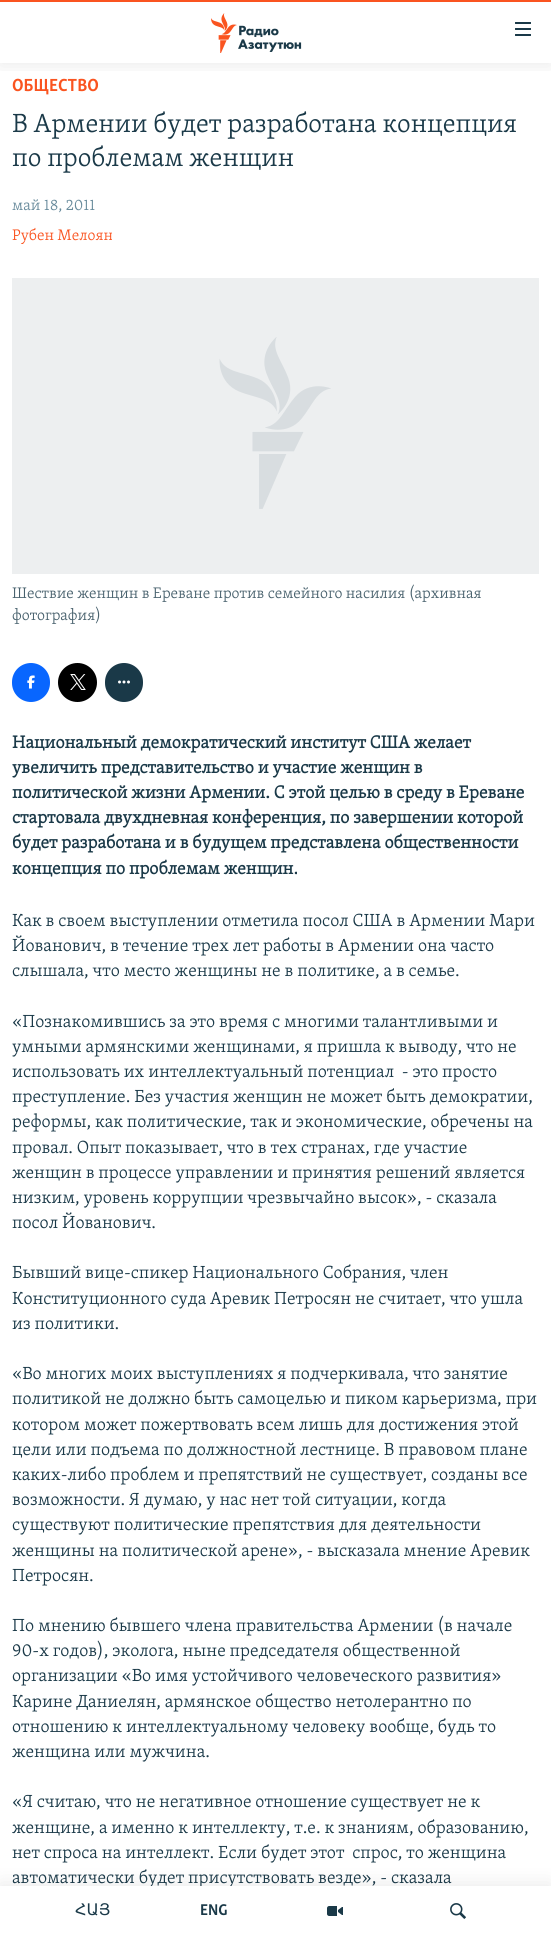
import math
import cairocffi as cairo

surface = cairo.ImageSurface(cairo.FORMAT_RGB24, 551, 1936)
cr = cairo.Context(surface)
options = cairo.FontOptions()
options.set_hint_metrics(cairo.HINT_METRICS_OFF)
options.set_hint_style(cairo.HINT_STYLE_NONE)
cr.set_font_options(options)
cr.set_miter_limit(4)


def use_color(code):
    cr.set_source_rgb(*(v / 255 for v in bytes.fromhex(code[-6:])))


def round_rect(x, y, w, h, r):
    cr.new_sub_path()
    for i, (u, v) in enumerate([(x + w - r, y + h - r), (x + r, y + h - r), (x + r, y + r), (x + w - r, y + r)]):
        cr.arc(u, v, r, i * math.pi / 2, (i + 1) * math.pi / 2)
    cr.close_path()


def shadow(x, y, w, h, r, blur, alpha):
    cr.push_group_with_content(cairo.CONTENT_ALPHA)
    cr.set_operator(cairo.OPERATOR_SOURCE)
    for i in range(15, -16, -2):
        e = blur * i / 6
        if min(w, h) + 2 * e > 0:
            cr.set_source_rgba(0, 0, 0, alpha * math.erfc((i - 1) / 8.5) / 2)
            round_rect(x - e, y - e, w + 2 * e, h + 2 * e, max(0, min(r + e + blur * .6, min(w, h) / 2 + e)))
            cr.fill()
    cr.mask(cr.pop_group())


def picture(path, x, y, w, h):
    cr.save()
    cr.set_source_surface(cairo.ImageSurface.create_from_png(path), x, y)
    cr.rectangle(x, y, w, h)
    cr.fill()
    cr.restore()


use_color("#ffffff")
cr.paint()
cr.select_font_face("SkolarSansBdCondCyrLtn", cairo.FONT_SLANT_NORMAL, cairo.FONT_WEIGHT_BOLD)
cr.set_font_size(18)
use_color("#fa5420")
cr.move_to(12, 91)
cr.show_text("ОБЩЕСТВО")
cr.select_font_face("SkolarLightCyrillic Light")
cr.set_font_size(27)
use_color("#1a3948")
cr.move_to(12, 132)
cr.show_text("В Армении будет разработана концепция")
cr.move_to(12, 166)
cr.show_text("по проблемам женщин")
cr.set_font_size(15.75)
use_color("#678a9b")
cr.move_to(12, 210)
cr.show_text("май 18, 2011")
use_color("#fa5420")
cr.move_to(12, 240)
cr.show_text("Рубен Мелоян")
use_color("#edeff0")
cr.rectangle(12, 278, 527, 296)
cr.fill()
picture("img1.png", 219, 337, 112, 172)
use_color("#48616d")
cr.move_to(12, 598)
cr.show_text("Шествие женщин в Ереване против семейного насилия (архивная")
cr.move_to(12, 620)
cr.show_text("фотография)")
use_color("#0866ff")
round_rect(12, 663, 38, 39, 19)
cr.fill()
picture("img2.png", 27, 675, 8, 14)
use_color("#000000")
cr.arc(77.5, 682.5, 19.5, 0, 2 * math.pi)
cr.fill()
picture("img3.png", 70, 674, 16, 16)
use_color("#1a3948")
round_rect(105, 663, 38, 39, 19)
cr.fill()
picture("img4.png", 118, 680, 12, 4)
cr.select_font_face("SkolarLightCyrillic", cairo.FONT_SLANT_NORMAL, cairo.FONT_WEIGHT_BOLD)
cr.set_font_size(18)
cr.move_to(12, 748)
cr.show_text("Национальный демократический институт США желает")
cr.move_to(12, 773)
cr.show_text("увеличить представительство и участие женщин в")
cr.move_to(12, 798)
cr.show_text("политической жизни Армении. С этой целью в среду в Ереване")
cr.move_to(12, 823)
cr.show_text("стартовала двухдневная конференция, по завершении которой")
cr.move_to(12, 848)
cr.show_text("будет разработана и в будущем представлена общественности")
cr.move_to(12, 874)
cr.show_text("концепция по проблемам женщин.")
cr.select_font_face("SkolarLightCyrillic Light")
cr.move_to(12, 926)
cr.show_text("Как в своем выступлении отметила посол США в Армении Мари")
cr.move_to(12, 951)
cr.show_text("Йованович, в течение трех лет работы в Армении она часто")
cr.move_to(12, 976)
cr.show_text("слышала, что место женщины не в политике, а в семье.")
cr.move_to(12, 1027)
cr.show_text("«Познакомившись за это время с многими талантливыми и")
cr.move_to(12, 1052)
cr.show_text("умными армянскими женщинами, я пришла к выводу, что не")
cr.move_to(12, 1077)
cr.show_text("использовать их интеллектуальный потенциал  - это просто")
cr.move_to(12, 1102)
cr.show_text("преступление. Без участия женщин не может быть демократии,")
cr.move_to(12, 1127)
cr.show_text("реформы, как политические, так и экономические, обречены на")
cr.move_to(12, 1153)
cr.show_text("провал. Опыт показывает, что в тех странах, где участие")
cr.move_to(12, 1178)
cr.show_text("женщин в процессе управлении и принятия решений является")
cr.move_to(12, 1203)
cr.show_text("низким, уровень коррупции чрезвычайно высок», - сказала")
cr.move_to(12, 1228)
cr.show_text("посол Йованович.")
cr.move_to(12, 1278)
cr.show_text("Бывший вице-спикер Национального Собрания, член")
cr.move_to(12, 1304)
cr.show_text("Конституционного суда Аревик Петросян не считает, что ушла")
cr.move_to(12, 1329)
cr.show_text("из политики.")
cr.move_to(12, 1379)
cr.show_text("«Во многих моих выступлениях я подчеркивала, что занятие")
cr.move_to(12, 1404)
cr.show_text("политикой не должно быть самоцелью и пиком карьеризма, при")
cr.move_to(12, 1430)
cr.show_text("котором может пожертвовать всем лишь для достижения этой")
cr.move_to(12, 1455)
cr.show_text("цели или подъема по должностной лестнице. В правовом плане")
cr.move_to(12, 1480)
cr.show_text("каких-либо проблем и препятствий не существует, созданы все")
cr.move_to(12, 1505)
cr.show_text("возможности. Я думаю, у нас нет той ситуации, когда")
cr.move_to(12, 1530)
cr.show_text("существуют политические препятствия для деятельности")
cr.move_to(12, 1556)
cr.show_text("женщины на политической арене», - высказала мнение Аревик")
cr.move_to(12, 1581)
cr.show_text("Петросян.")
cr.move_to(12, 1631)
cr.show_text("По мнению бывшего члена правительства Армении (в начале")
cr.move_to(12, 1656)
cr.show_text("90-х годов), эколога, ныне председателя общественной")
cr.move_to(12, 1681)
cr.show_text("организации «Во имя устойчивого человеческого развития»")
cr.move_to(12, 1707)
cr.show_text("Карине Даниелян, армянское общество нетолерантно по")
cr.move_to(12, 1732)
cr.show_text("отношению к интеллектуальному человеку вообще, будь то")
cr.move_to(12, 1757)
cr.show_text("женщина или мужчина.")
cr.move_to(12, 1807)
cr.show_text("«Я считаю, что не негативное отношение существует не к")
cr.move_to(12, 1833)
cr.show_text("женщине, а именно к интеллекту, т.е. к знаниям, образованию,")
cr.move_to(12, 1858)
cr.show_text("нет спроса на интеллект. Если будет этот  спрос, то женщина")
cr.move_to(12, 1883)
cr.show_text("автоматически будет присутствовать везде», - сказала")
cr.save()
cr.rectangle(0, 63, 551, 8)
cr.clip()
use_color("#000000")
shadow(0, 0, 551, 63, 0, 10, 0.1)
cr.restore()
use_color("#fa5420")
cr.rectangle(0, 0, 551, 2)
cr.fill()
picture("img5.png", 211, 13, 91, 40)
picture("img6.png", 515, 22, 16, 14)
use_color("#000000")
shadow(0, 1886, 551, 50, 0, 10, 0.1)
use_color("#ffffff")
cr.rectangle(0, 1886, 551, 50)
cr.fill()
cr.select_font_face("DejaVu Sans")
cr.set_font_size(16)
use_color("#1a3948")
cr.move_to(75, 1915)
cr.show_text("ՀԱՅ")
cr.select_font_face("SkolarSansBdCondCyrLtn", cairo.FONT_SLANT_NORMAL, cairo.FONT_WEIGHT_BOLD)
cr.move_to(200, 1915)
cr.show_text("ENG")
picture("img7.png", 327, 1906, 16, 10)
picture("img8.png", 450, 1903, 16, 16)
surface.write_to_png("result.png")
